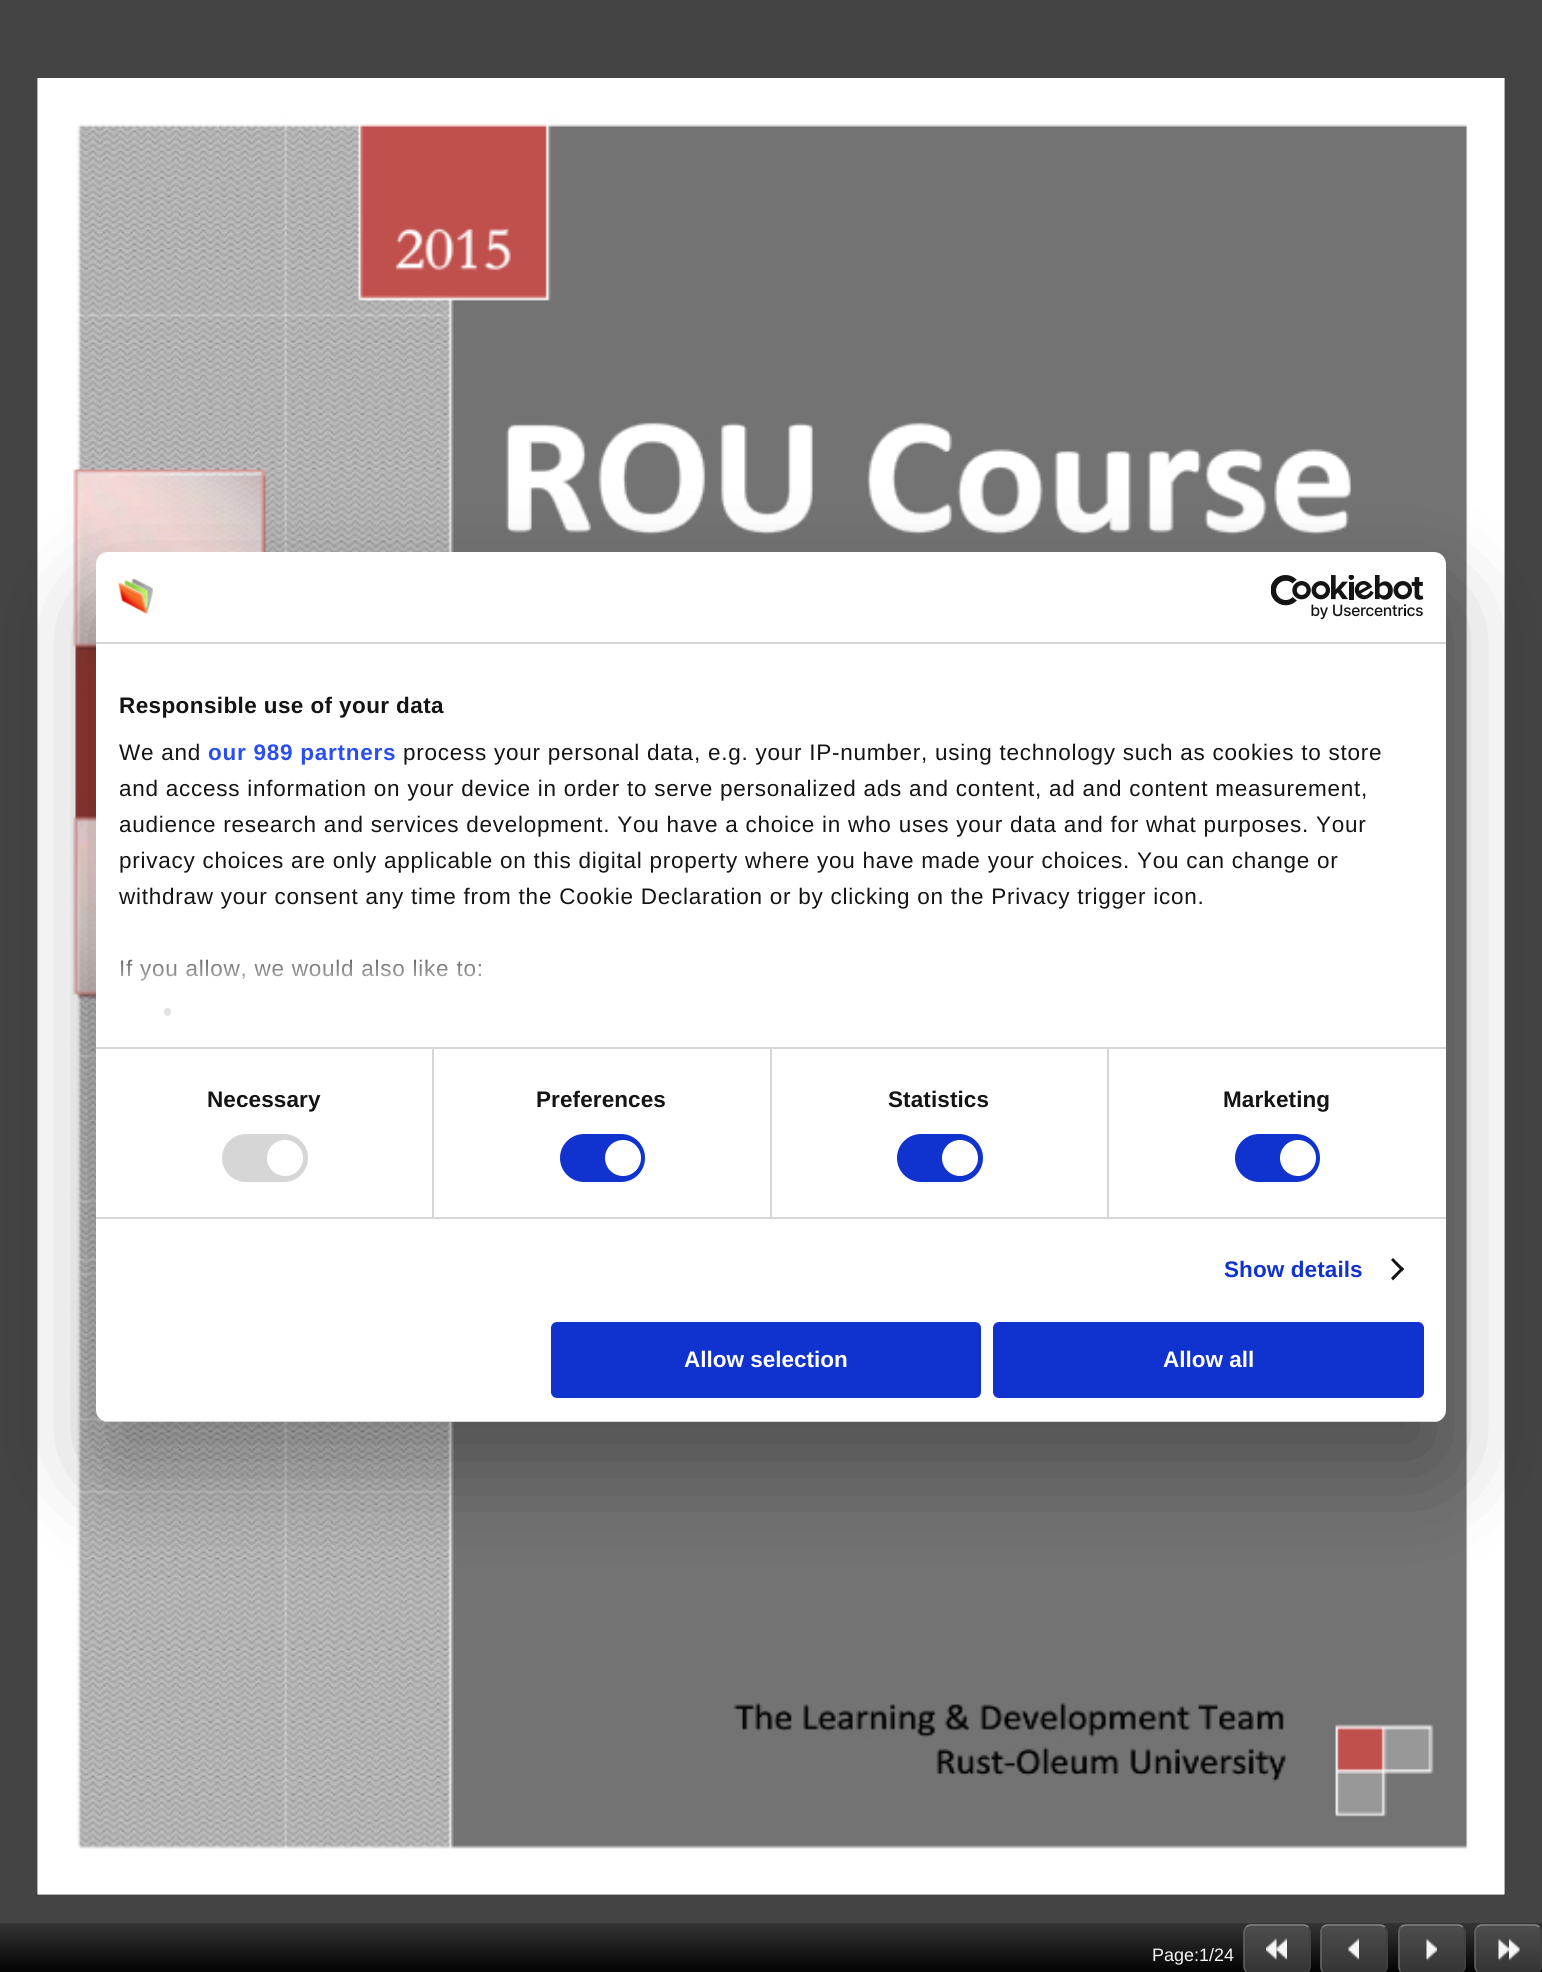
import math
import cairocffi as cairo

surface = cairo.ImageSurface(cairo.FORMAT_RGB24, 1542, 1972)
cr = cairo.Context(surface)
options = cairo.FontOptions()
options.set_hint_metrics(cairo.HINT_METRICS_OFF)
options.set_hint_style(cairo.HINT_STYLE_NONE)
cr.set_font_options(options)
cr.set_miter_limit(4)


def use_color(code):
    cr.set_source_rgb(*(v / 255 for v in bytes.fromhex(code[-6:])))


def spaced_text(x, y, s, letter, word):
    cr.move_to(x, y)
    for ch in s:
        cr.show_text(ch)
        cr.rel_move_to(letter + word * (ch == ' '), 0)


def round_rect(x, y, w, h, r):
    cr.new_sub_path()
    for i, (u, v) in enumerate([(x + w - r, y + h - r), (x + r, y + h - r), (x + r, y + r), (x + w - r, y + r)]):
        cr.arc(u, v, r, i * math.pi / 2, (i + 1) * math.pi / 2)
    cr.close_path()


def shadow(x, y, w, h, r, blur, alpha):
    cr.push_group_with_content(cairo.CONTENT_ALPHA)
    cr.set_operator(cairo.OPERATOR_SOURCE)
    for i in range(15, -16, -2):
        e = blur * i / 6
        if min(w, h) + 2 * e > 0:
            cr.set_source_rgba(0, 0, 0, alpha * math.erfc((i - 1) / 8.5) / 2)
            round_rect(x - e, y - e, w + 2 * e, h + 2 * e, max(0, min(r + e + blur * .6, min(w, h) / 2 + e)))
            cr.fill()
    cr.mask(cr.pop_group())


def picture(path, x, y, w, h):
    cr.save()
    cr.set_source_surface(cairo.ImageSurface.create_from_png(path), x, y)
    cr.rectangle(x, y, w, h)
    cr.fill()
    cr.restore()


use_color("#444444")
cr.paint()
picture("img1.png", 37, 78, 1468, 1817)
picture("img2.png", 37, 78, 1468, 1817)
picture("img3.png", 37, 78, 1468, 1817)
use_color("#000000")
shadow(96, 600, 1350, 870, 12, 51, 0.3)
use_color("#ffffff")
round_rect(96, 552, 1350, 870, 12)
cr.fill()
use_color("#d6d6d6")
cr.rectangle(96, 642, 1350, 2)
cr.fill()
picture("img4.png", 118, 578, 35, 36)
picture("img5.png", 1271, 575, 153, 45)
cr.rectangle(96, 1047, 1350, 2)
cr.fill()
cr.select_font_face("Liberation Sans", cairo.FONT_SLANT_NORMAL, cairo.FONT_WEIGHT_BOLD)
cr.set_font_size(22.5)
use_color("#141414")
spaced_text(119, 713, "Responsible use of your data", 0.4, 0)
cr.select_font_face("Liberation Sans")
spaced_text(119, 760, "We and", 0.75, 0)
cr.select_font_face("Liberation Sans", cairo.FONT_SLANT_NORMAL, cairo.FONT_WEIGHT_BOLD)
use_color("#2a4eef")
spaced_text(208, 760, "our 989 partners", 0.75, 0)
cr.select_font_face("Liberation Sans")
use_color("#141414")
spaced_text(403, 760, "process your personal data, e.g. your IP-number, using technology such as cookies to store", 0.75, 0)
spaced_text(119, 796, "and access information on your device in order to serve personalized ads and content, ad and content measurement,", 0.75, 0)
spaced_text(119, 832, "audience research and services development. You have a choice in who uses your data and for what purposes. Your", 0.75, 0)
spaced_text(119, 868, "privacy choices are only applicable on this digital property where you have made your choices. You can change or", 0.75, 0)
spaced_text(119, 904, "withdraw your consent any time from the Cookie Declaration or by clicking on the Privacy trigger icon.", 0.75, 0)
spaced_text(119, 976, "If you allow, we would also like to:", 0.75, 0)
round_rect(164, 1008, 7, 8, 3.5)
cr.fill()
gradient = cairo.LinearGradient(761, 1047, 761, 934)
gradient.add_color_stop_rgba(0, 1, 1, 1, 1)
gradient.add_color_stop_rgba(0.5, 1, 1, 1, 0.8)
gradient.add_color_stop_rgba(1, 1, 1, 1, 0)
cr.set_source(gradient)
cr.rectangle(120, 959, 361, 57)
cr.fill()
use_color("#d6d6d6")
cr.rectangle(96, 1217, 1350, 2)
cr.fill()
cr.rectangle(432, 1049, 2, 168)
cr.fill()
cr.select_font_face("Liberation Sans", cairo.FONT_SLANT_NORMAL, cairo.FONT_WEIGHT_BOLD)
use_color("#141414")
spaced_text(207, 1107, "Necessary", 0.1, 0)
use_color("#d6d6d6")
round_rect(222, 1134, 86, 48, 24)
cr.fill()
use_color("#ffffff")
cr.arc(285, 1158, 18, 0, 2 * math.pi)
cr.fill()
use_color("#d6d6d6")
cr.rectangle(770, 1049, 2, 168)
cr.fill()
use_color("#141414")
spaced_text(536, 1107, "Preferences", 0.1, 0)
use_color("#1032cf")
round_rect(560, 1134, 85, 48, 24)
cr.fill()
use_color("#ffffff")
cr.arc(623, 1158, 18, 0, 2 * math.pi)
cr.fill()
use_color("#d6d6d6")
cr.rectangle(1107, 1049, 2, 168)
cr.fill()
use_color("#141414")
spaced_text(888, 1107, "Statistics", 0.1, 0)
use_color("#1032cf")
round_rect(897, 1134, 86, 48, 24)
cr.fill()
use_color("#ffffff")
cr.arc(960, 1158, 18, 0, 2 * math.pi)
cr.fill()
use_color("#141414")
spaced_text(1223, 1107, "Marketing", 0.1, 0)
use_color("#1032cf")
round_rect(1235, 1134, 85, 48, 24)
cr.fill()
use_color("#ffffff")
cr.arc(1298, 1158, 18, 0, 2 * math.pi)
cr.fill()
use_color("#1032cf")
spaced_text(1224, 1277, "Show details", 0.1, 0)
use_color("#141414")
cr.new_path()
cr.move_to(1393, 1258)
cr.line_to(1404, 1269)
cr.line_to(1402, 1271.5)
cr.line_to(1391, 1260)
cr.close_path()
cr.fill()
cr.new_path()
cr.move_to(1402, 1267)
cr.line_to(1404, 1269)
cr.line_to(1393, 1280.5)
cr.line_to(1391, 1278)
cr.close_path()
cr.fill()
cr.save()
round_rect(96, 552, 1350, 870, 12)
cr.clip()
use_color("#d6d6d6")
cr.rectangle(96, 1421, 1350, 1)
cr.fill()
cr.restore()
use_color("#1032cf")
round_rect(552.5, 1323.5, 427, 73, 4.5)
cr.fill_preserve()
cr.set_line_width(3)
cr.stroke()
use_color("#ffffff")
cr.move_to(684, 1367)
cr.show_text("Allow selection")
use_color("#1032cf")
round_rect(994.5, 1323.5, 428, 73, 4.5)
cr.fill_preserve()
cr.stroke()
use_color("#ffffff")
cr.move_to(1163, 1367)
cr.show_text("Allow all")
gradient = cairo.LinearGradient(0, 1923, 0, 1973)
gradient.add_color_stop_rgba(0, 0.204, 0.204, 0.204, 1)
gradient.add_color_stop_rgba(1, 0.012, 0.012, 0.012, 1)
cr.set_source(gradient)
cr.rectangle(0, 1923, 1542, 49)
cr.fill()
cr.select_font_face("Liberation Sans")
cr.set_font_size(18)
use_color("#f6f6f6")
cr.move_to(1152, 1961)
cr.show_text("Page:1/24")
cr.save()
round_rect(1244, 1925, 67, 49, 8)
cr.clip()
gradient = cairo.LinearGradient(1245, 1926, 1245, 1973)
gradient.add_color_stop_rgba(0, 0.302, 0.302, 0.302, 1)
gradient.add_color_stop_rgba(1, 0.204, 0.204, 0.204, 1)
cr.set_source(gradient)
cr.rectangle(1244, 1926, 67, 46)
cr.fill()
cr.restore()
cr.new_path()
cr.move_to(1246, 1927)
cr.curve_to(1247.5, 1926, 1249, 1925, 1251, 1925)
cr.line_to(1303.5, 1925)
cr.curve_to(1305.5, 1925, 1307, 1926, 1308.5, 1927)
use_color("#888888")
cr.set_line_width(1.5)
cr.stroke()
cr.new_path()
cr.move_to(1308.5, 1927)
cr.curve_to(1309.5, 1928.5, 1310, 1930, 1310, 1932)
cr.line_to(1310, 1966.5)
cr.curve_to(1310, 1968.5, 1309.5, 1970, 1308.5, 1971.5)
use_color("#404040")
cr.stroke()
cr.new_path()
cr.move_to(1308.5, 1971.5)
cr.curve_to(1307, 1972.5, 1305.5, 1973, 1303.5, 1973)
cr.line_to(1251, 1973)
cr.curve_to(1249, 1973, 1247.5, 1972.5, 1246, 1971.5)
use_color("#343434")
cr.stroke()
cr.new_path()
cr.move_to(1246, 1971.5)
cr.curve_to(1245, 1970, 1244, 1968.5, 1244, 1966.5)
cr.line_to(1244, 1932)
cr.curve_to(1244, 1930, 1245, 1928.5, 1246, 1927)
use_color("#646464")
cr.stroke()
picture("img6.png", 1266, 1938, 11, 22)
picture("img7.png", 1276, 1938, 11, 22)
cr.save()
round_rect(1320, 1925, 68, 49, 8)
cr.clip()
gradient = cairo.LinearGradient(1322, 1926, 1322, 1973)
gradient.add_color_stop_rgba(0, 0.302, 0.302, 0.302, 1)
gradient.add_color_stop_rgba(1, 0.204, 0.204, 0.204, 1)
cr.set_source(gradient)
cr.rectangle(1320, 1926, 68, 46)
cr.fill()
cr.restore()
cr.new_path()
cr.move_to(1322.5, 1927)
cr.curve_to(1324, 1926, 1325.5, 1925, 1327.5, 1925)
cr.line_to(1380, 1925)
cr.curve_to(1382, 1925, 1383.5, 1926, 1385, 1927)
use_color("#888888")
cr.stroke()
cr.new_path()
cr.move_to(1385, 1927)
cr.curve_to(1386, 1928.5, 1387, 1930, 1387, 1932)
cr.line_to(1387, 1966.5)
cr.curve_to(1387, 1968.5, 1386, 1970, 1385, 1971.5)
use_color("#404040")
cr.stroke()
cr.new_path()
cr.move_to(1385, 1971.5)
cr.curve_to(1383.5, 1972.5, 1382, 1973, 1380, 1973)
cr.line_to(1327.5, 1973)
cr.curve_to(1325.5, 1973, 1324, 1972.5, 1322.5, 1971.5)
use_color("#343434")
cr.stroke()
cr.new_path()
cr.move_to(1322.5, 1971.5)
cr.curve_to(1321.5, 1970, 1321, 1968.5, 1321, 1966.5)
cr.line_to(1321, 1932)
cr.curve_to(1321, 1930, 1321.5, 1928.5, 1322.5, 1927)
use_color("#646464")
cr.stroke()
picture("img8.png", 1348, 1938, 11, 22)
cr.save()
round_rect(1398, 1925, 68, 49, 8)
cr.clip()
gradient = cairo.LinearGradient(1400, 1926, 1400, 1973)
gradient.add_color_stop_rgba(0, 0.302, 0.302, 0.302, 1)
gradient.add_color_stop_rgba(1, 0.204, 0.204, 0.204, 1)
cr.set_source(gradient)
cr.rectangle(1398, 1926, 68, 46)
cr.fill()
cr.restore()
cr.new_path()
cr.move_to(1400.5, 1927)
cr.curve_to(1402, 1926, 1403.5, 1925, 1405.5, 1925)
cr.line_to(1458, 1925)
cr.curve_to(1460, 1925, 1461.5, 1926, 1463, 1927)
use_color("#888888")
cr.stroke()
cr.new_path()
cr.move_to(1463, 1927)
cr.curve_to(1464, 1928.5, 1465, 1930, 1465, 1932)
cr.line_to(1465, 1966.5)
cr.curve_to(1465, 1968.5, 1464, 1970, 1463, 1971.5)
use_color("#404040")
cr.stroke()
cr.new_path()
cr.move_to(1463, 1971.5)
cr.curve_to(1461.5, 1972.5, 1460, 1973, 1458, 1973)
cr.line_to(1405.5, 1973)
cr.curve_to(1403.5, 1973, 1402, 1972.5, 1400.5, 1971.5)
use_color("#343434")
cr.stroke()
cr.new_path()
cr.move_to(1400.5, 1971.5)
cr.curve_to(1399.5, 1970, 1399, 1968.5, 1399, 1966.5)
cr.line_to(1399, 1932)
cr.curve_to(1399, 1930, 1399.5, 1928.5, 1400.5, 1927)
use_color("#646464")
cr.stroke()
picture("img9.png", 1426, 1938, 11, 23)
cr.save()
round_rect(1475, 1925, 67, 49, 8)
cr.clip()
gradient = cairo.LinearGradient(1476, 1926, 1476, 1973)
gradient.add_color_stop_rgba(0, 0.302, 0.302, 0.302, 1)
gradient.add_color_stop_rgba(1, 0.204, 0.204, 0.204, 1)
cr.set_source(gradient)
cr.rectangle(1475, 1926, 67, 46)
cr.fill()
cr.restore()
cr.new_path()
cr.move_to(1477, 1927)
cr.curve_to(1478.5, 1926, 1480, 1925, 1482, 1925)
cr.line_to(1534.5, 1925)
cr.curve_to(1536.5, 1925, 1538, 1926, 1539.5, 1927)
use_color("#888888")
cr.stroke()
cr.new_path()
cr.move_to(1539.5, 1927)
cr.curve_to(1540.5, 1928.5, 1541, 1930, 1541, 1932)
cr.line_to(1541, 1966.5)
cr.curve_to(1541, 1968.5, 1540.5, 1970, 1539.5, 1971.5)
use_color("#404040")
cr.stroke()
cr.new_path()
cr.move_to(1539.5, 1971.5)
cr.curve_to(1538, 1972.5, 1536.5, 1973, 1534.5, 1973)
cr.line_to(1482, 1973)
cr.curve_to(1480, 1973, 1478.5, 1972.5, 1477, 1971.5)
use_color("#343434")
cr.stroke()
cr.new_path()
cr.move_to(1477, 1971.5)
cr.curve_to(1476, 1970, 1475, 1968.5, 1475, 1966.5)
cr.line_to(1475, 1932)
cr.curve_to(1475, 1930, 1476, 1928.5, 1477, 1927)
use_color("#646464")
cr.stroke()
picture("img9.png", 1498, 1938, 11, 23)
picture("img10.png", 1509, 1938, 11, 23)
surface.write_to_png("result.png")
